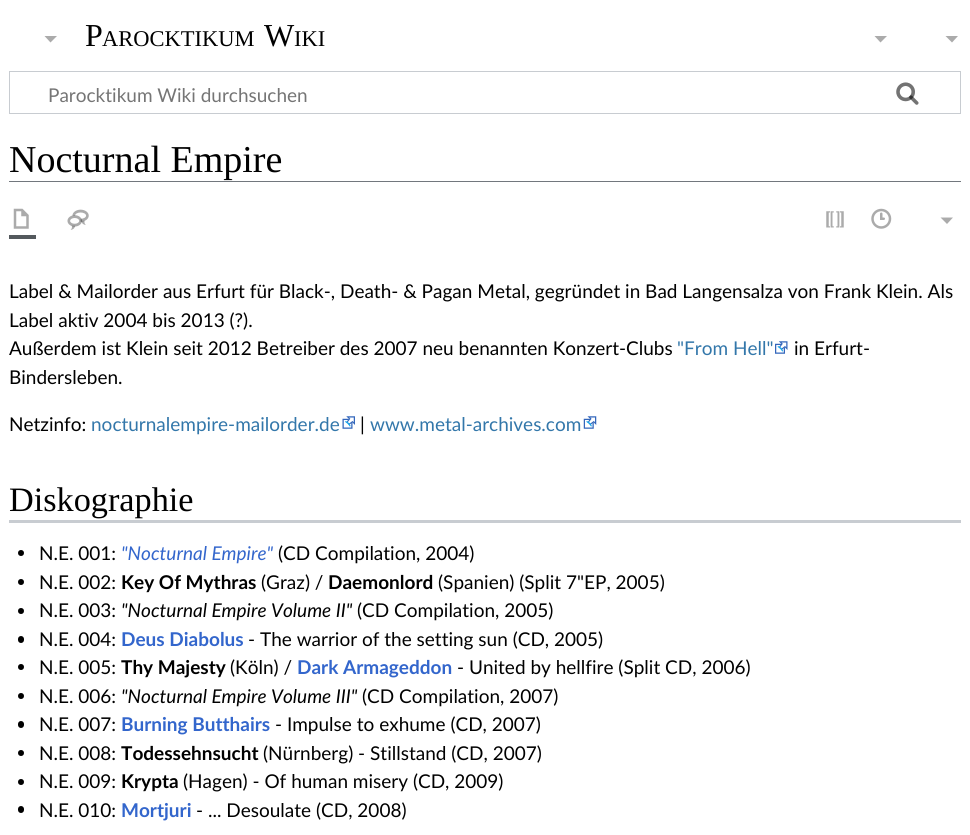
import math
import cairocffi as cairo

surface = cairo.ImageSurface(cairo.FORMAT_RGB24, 970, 835)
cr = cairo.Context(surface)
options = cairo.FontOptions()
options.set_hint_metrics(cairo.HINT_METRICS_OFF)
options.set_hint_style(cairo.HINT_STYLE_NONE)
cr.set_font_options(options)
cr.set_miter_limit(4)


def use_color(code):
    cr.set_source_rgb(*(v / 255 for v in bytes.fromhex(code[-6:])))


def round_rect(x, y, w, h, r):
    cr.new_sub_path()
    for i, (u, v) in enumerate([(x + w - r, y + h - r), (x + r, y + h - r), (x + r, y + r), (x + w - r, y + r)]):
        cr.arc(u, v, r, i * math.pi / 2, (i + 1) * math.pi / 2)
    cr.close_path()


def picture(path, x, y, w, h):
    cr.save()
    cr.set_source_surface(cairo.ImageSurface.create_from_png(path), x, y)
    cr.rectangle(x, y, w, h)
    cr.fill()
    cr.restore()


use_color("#ffffff")
cr.paint()
cr.select_font_face("Liberation Serif")
cr.set_font_size(32)
use_color("#000000")
cr.move_to(85, 46)
cr.show_text("P")
cr.set_font_size(22.5)
cr.move_to(102, 46)
cr.show_text("AROCKTIKUM")
cr.set_font_size(32)
cr.move_to(264, 46)
cr.show_text("W")
cr.set_font_size(22.5)
cr.move_to(294, 46)
cr.show_text("IKI")
use_color("#ababab")
cr.new_path()
cr.move_to(958, 36)
cr.line_to(952, 42.5)
cr.line_to(945.5, 36)
cr.close_path()
cr.fill()
cr.rectangle(9.5, 71.5, 951, 42)
use_color("#c8ccd1")
cr.set_line_width(1)
cr.stroke()
picture("img1.png", 896, 82, 23, 23)
cr.select_font_face("Lato")
cr.set_font_size(19)
use_color("#757575")
cr.move_to(48, 102)
cr.show_text("Parocktikum Wiki durchsuchen")
picture("img2.png", 896, 82, 23, 23)
use_color("#ababab")
cr.new_path()
cr.move_to(57, 36)
cr.line_to(50.5, 42.5)
cr.line_to(44.5, 36)
cr.close_path()
cr.fill()
cr.new_path()
cr.move_to(887, 36)
cr.line_to(880.5, 42.5)
cr.line_to(874.5, 36)
cr.close_path()
cr.fill()
use_color("#72777d")
cr.rectangle(9, 181, 952, 1)
cr.fill()
cr.select_font_face("Liberation Serif")
cr.set_font_size(38)
use_color("#000000")
cr.move_to(9, 172)
cr.show_text("Nocturnal Empire")
use_color("#54595d")
cr.rectangle(9, 235, 27, 4)
cr.fill()
picture("img3.png", 13, 208, 16, 21)
picture("img4.png", 67, 209, 22, 21)
picture("img5.png", 826, 211, 18, 17)
picture("img6.png", 871, 208, 21, 21)
use_color("#ababab")
cr.new_path()
cr.move_to(953, 217.5)
cr.line_to(947, 224)
cr.line_to(940.5, 217.5)
cr.close_path()
cr.fill()
cr.select_font_face("Lato")
cr.set_font_size(19)
use_color("#000000")
cr.move_to(9, 298)
cr.show_text("Label & Mailorder aus Erfurt für Black-, Death- & Pagan Metal, gegründet in Bad Langensalza von Frank Klein. Als")
cr.move_to(9, 327)
cr.show_text("Label aktiv 2004 bis 2013 (?).")
cr.move_to(9, 355)
cr.show_text("Außerdem ist Klein seit 2012 Betreiber des 2007 neu benannten Konzert-Clubs")
use_color("#3377aa")
cr.move_to(677, 355)
cr.show_text("\"From Hell\"")
picture("img7.png", 775, 341, 13, 13)
use_color("#000000")
cr.move_to(794, 355)
cr.show_text("in Erfurt-")
cr.move_to(9, 384)
cr.show_text("Bindersleben.")
cr.move_to(9, 431)
cr.show_text("Netzinfo:")
use_color("#3377aa")
cr.move_to(91, 431)
cr.show_text("nocturnalempire-mailorder.de")
picture("img8.png", 342, 416, 13, 13)
use_color("#000000")
cr.move_to(360, 431)
cr.show_text("|")
use_color("#3377aa")
cr.move_to(370, 431)
cr.show_text("www.metal-archives.com")
picture("img9.png", 583, 416, 14, 13)
cr.select_font_face("Liberation Serif")
cr.set_font_size(34.25)
use_color("#000000")
cr.move_to(9, 511)
cr.show_text("Diskographie")
use_color("#c8ccd1")
cr.rectangle(9, 520, 952, 3)
cr.fill()
use_color("#000000")
cr.arc(21, 553, 3, 0, 2 * math.pi)
cr.fill()
cr.select_font_face("Lato")
cr.set_font_size(19)
cr.move_to(39, 560)
cr.show_text("N.E. 001:")
cr.select_font_face("Lato", cairo.FONT_SLANT_ITALIC)
use_color("#3366cc")
cr.move_to(121, 560)
cr.show_text("\"Nocturnal Empire\"")
cr.select_font_face("Lato")
use_color("#000000")
cr.move_to(278, 560)
cr.show_text("(CD Compilation, 2004)")
cr.new_path()
cr.arc(21, 582, 3, 0, 2 * math.pi)
cr.fill()
cr.move_to(39, 589)
cr.show_text("N.E. 002:")
cr.select_font_face("Lato", cairo.FONT_SLANT_NORMAL, cairo.FONT_WEIGHT_BOLD)
cr.move_to(121, 589)
cr.show_text("Key Of Mythras")
cr.select_font_face("Lato")
cr.move_to(261, 589)
cr.show_text("(Graz) /")
cr.select_font_face("Lato", cairo.FONT_SLANT_NORMAL, cairo.FONT_WEIGHT_BOLD)
cr.move_to(328, 589)
cr.show_text("Daemonlord")
cr.select_font_face("Lato")
cr.move_to(438, 589)
cr.show_text("(Spanien) (Split 7\"EP, 2005)")
cr.new_path()
cr.arc(21, 611, 3, 0, 2 * math.pi)
cr.fill()
cr.move_to(39, 617)
cr.show_text("N.E. 003:")
cr.select_font_face("Lato", cairo.FONT_SLANT_ITALIC)
cr.move_to(121, 617)
cr.show_text("\"Nocturnal Empire Volume II\"")
cr.select_font_face("Lato")
cr.move_to(357, 617)
cr.show_text("(CD Compilation, 2005)")
round_rect(18, 636, 6, 7, 3)
cr.fill()
cr.move_to(39, 646)
cr.show_text("N.E. 004:")
cr.select_font_face("Lato", cairo.FONT_SLANT_NORMAL, cairo.FONT_WEIGHT_BOLD)
use_color("#3366cc")
cr.move_to(121, 646)
cr.show_text("Deus Diabolus")
cr.select_font_face("Lato")
use_color("#000000")
cr.move_to(248, 646)
cr.show_text("- The warrior of the setting sun (CD, 2005)")
cr.new_path()
cr.arc(21, 667, 3, 0, 2 * math.pi)
cr.fill()
cr.move_to(39, 674)
cr.show_text("N.E. 005:")
cr.select_font_face("Lato", cairo.FONT_SLANT_NORMAL, cairo.FONT_WEIGHT_BOLD)
cr.move_to(121, 674)
cr.show_text("Thy Majesty")
cr.select_font_face("Lato")
cr.move_to(230, 674)
cr.show_text("(Köln) /")
cr.select_font_face("Lato", cairo.FONT_SLANT_NORMAL, cairo.FONT_WEIGHT_BOLD)
use_color("#3366cc")
cr.move_to(297, 674)
cr.show_text("Dark Armageddon")
cr.select_font_face("Lato")
use_color("#000000")
cr.move_to(457, 674)
cr.show_text("- United by hellfire (Split CD, 2006)")
cr.new_path()
cr.arc(21, 696, 3, 0, 2 * math.pi)
cr.fill()
cr.move_to(39, 703)
cr.show_text("N.E. 006:")
cr.select_font_face("Lato", cairo.FONT_SLANT_ITALIC)
cr.move_to(121, 703)
cr.show_text("\"Nocturnal Empire Volume III\"")
cr.select_font_face("Lato")
cr.move_to(362, 703)
cr.show_text("(CD Compilation, 2007)")
round_rect(18, 721, 6, 7, 3)
cr.fill()
cr.move_to(39, 731)
cr.show_text("N.E. 007:")
cr.select_font_face("Lato", cairo.FONT_SLANT_NORMAL, cairo.FONT_WEIGHT_BOLD)
use_color("#3366cc")
cr.move_to(121, 731)
cr.show_text("Burning Butthairs")
cr.select_font_face("Lato")
use_color("#000000")
cr.move_to(275, 731)
cr.show_text("- Impulse to exhume (CD, 2007)")
cr.new_path()
cr.arc(21, 753, 3, 0, 2 * math.pi)
cr.fill()
cr.move_to(39, 760)
cr.show_text("N.E. 008:")
cr.select_font_face("Lato", cairo.FONT_SLANT_NORMAL, cairo.FONT_WEIGHT_BOLD)
cr.move_to(121, 760)
cr.show_text("Todessehnsucht")
cr.select_font_face("Lato")
cr.move_to(263, 760)
cr.show_text("(Nürnberg) - Stillstand (CD, 2007)")
cr.new_path()
cr.arc(21, 782, 3, 0, 2 * math.pi)
cr.fill()
cr.move_to(39, 788)
cr.show_text("N.E. 009:")
cr.select_font_face("Lato", cairo.FONT_SLANT_NORMAL, cairo.FONT_WEIGHT_BOLD)
cr.move_to(121, 788)
cr.show_text("Krypta")
cr.select_font_face("Lato")
cr.move_to(183, 788)
cr.show_text("(Hagen) - Of human misery (CD, 2009)")
round_rect(18, 806, 6, 7, 3)
cr.fill()
cr.move_to(39, 817)
cr.show_text("N.E. 010:")
cr.select_font_face("Lato", cairo.FONT_SLANT_NORMAL, cairo.FONT_WEIGHT_BOLD)
use_color("#3366cc")
cr.move_to(121, 817)
cr.show_text("Mortjuri")
cr.select_font_face("Lato")
use_color("#000000")
cr.move_to(196, 817)
cr.show_text("- ... Desoulate (CD, 2008)")
surface.write_to_png("result.png")
